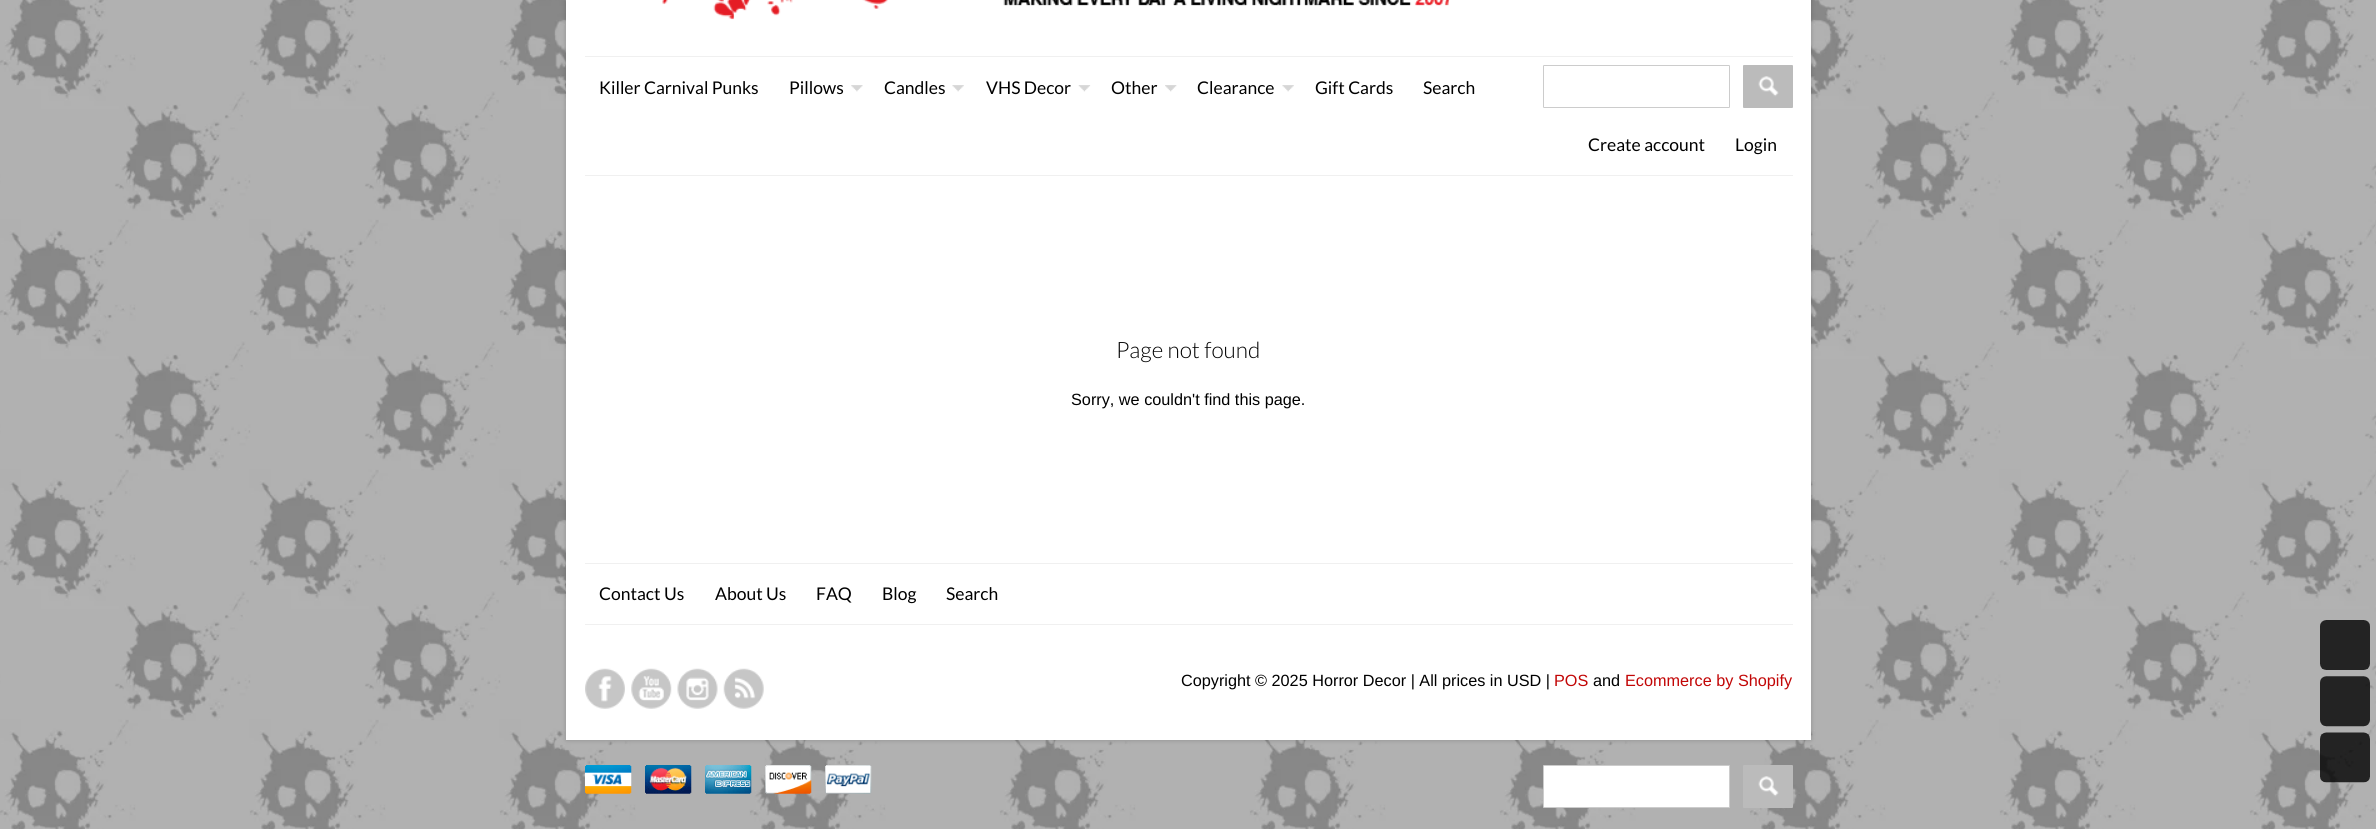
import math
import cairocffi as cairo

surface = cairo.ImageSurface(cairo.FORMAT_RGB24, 2376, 829)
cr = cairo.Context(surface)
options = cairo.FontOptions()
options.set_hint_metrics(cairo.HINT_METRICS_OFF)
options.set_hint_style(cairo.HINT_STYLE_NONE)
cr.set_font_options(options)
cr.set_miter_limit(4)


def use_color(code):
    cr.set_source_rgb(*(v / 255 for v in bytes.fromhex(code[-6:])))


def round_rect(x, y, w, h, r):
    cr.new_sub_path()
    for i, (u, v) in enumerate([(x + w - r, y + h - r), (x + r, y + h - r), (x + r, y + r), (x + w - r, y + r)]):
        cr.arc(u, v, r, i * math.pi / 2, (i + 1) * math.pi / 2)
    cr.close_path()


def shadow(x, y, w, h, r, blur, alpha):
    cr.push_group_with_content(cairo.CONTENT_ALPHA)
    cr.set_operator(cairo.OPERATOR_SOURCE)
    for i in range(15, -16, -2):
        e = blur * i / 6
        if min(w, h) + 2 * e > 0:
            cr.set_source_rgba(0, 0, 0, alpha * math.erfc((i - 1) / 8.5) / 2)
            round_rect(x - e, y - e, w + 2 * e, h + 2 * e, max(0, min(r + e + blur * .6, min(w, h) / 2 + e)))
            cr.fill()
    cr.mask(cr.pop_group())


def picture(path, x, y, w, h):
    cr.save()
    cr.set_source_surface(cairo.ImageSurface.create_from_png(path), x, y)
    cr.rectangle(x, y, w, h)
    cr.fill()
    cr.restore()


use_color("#ffffff")
cr.paint()
picture("img1.png", 0, 808, 2376, 21)
picture("img2.png", 0, 0, 2376, 808)
use_color("#000000")
shadow(566, -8, 1245, 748, 0, 2.5, 0.2)
use_color("#ffffff")
cr.rectangle(566, 0, 1245, 740)
cr.fill()
picture("img3.png", 662, 0, 788, 20)
use_color("#f0f0f0")
cr.rectangle(585, 56, 1208, 1)
cr.fill()
cr.rectangle(585, 175, 1208, 1)
cr.fill()
cr.select_font_face("Lato")
cr.set_font_size(17.5)
use_color("#000000")
cr.move_to(599, 94)
cr.show_text("Killer Carnival Punks")
picture("img4.png", 851, 85, 12, 7)
cr.move_to(789, 94)
cr.show_text("Pillows")
picture("img5.png", 952, 85, 12, 7)
cr.move_to(884, 94)
cr.show_text("Candles")
picture("img6.png", 1078, 85, 13, 7)
cr.move_to(986, 94)
cr.show_text("VHS Decor")
picture("img7.png", 1165, 85, 12, 7)
cr.move_to(1111, 94)
cr.show_text("Other")
picture("img5.png", 1282, 85, 12, 7)
cr.move_to(1197, 94)
cr.show_text("Clearance")
cr.move_to(1315, 94)
cr.show_text("Gift Cards")
cr.move_to(1423, 94)
cr.show_text("Search")
round_rect(1543.5, 65.5, 186, 42, 0.5)
use_color("#cccccc")
cr.set_line_width(1)
cr.stroke()
use_color("#bbbbbb")
round_rect(1743, 65, 50, 43, 1)
cr.fill()
picture("img8.png", 1758, 76, 21, 21)
use_color("#000000")
cr.move_to(1588, 151)
cr.show_text("Create account")
cr.move_to(1735, 151)
cr.show_text("Login")
cr.select_font_face("Lato Light")
cr.set_font_size(22.5)
cr.move_to(1116, 358)
cr.show_text("Page not found")
cr.select_font_face("Liberation Sans")
cr.set_font_size(16.25)
cr.move_to(1071, 405)
cr.show_text("Sorry, we couldn't find this page.")
use_color("#f0f0f0")
cr.rectangle(585, 563, 1208, 1)
cr.fill()
cr.rectangle(585, 624, 1208, 1)
cr.fill()
cr.select_font_face("Lato")
cr.set_font_size(17.5)
use_color("#000000")
cr.move_to(599, 600)
cr.show_text("Contact Us")
cr.move_to(715, 600)
cr.show_text("About Us")
cr.move_to(816, 600)
cr.show_text("FAQ")
cr.move_to(882, 600)
cr.show_text("Blog")
cr.move_to(946, 600)
cr.show_text("Search")
picture("img9.png", 585, 668, 40, 41)
picture("img10.png", 631, 668, 41, 41)
picture("img11.png", 677, 668, 41, 41)
picture("img12.png", 723, 668, 41, 41)
cr.select_font_face("Liberation Sans")
cr.set_font_size(16.25)
cr.move_to(1181, 686)
cr.show_text("Copyright © 2025 Horror Decor | All prices in USD |")
use_color("#c20606")
cr.move_to(1554, 686)
cr.show_text("POS")
use_color("#000000")
cr.move_to(1593, 686)
cr.show_text("and")
use_color("#c20606")
cr.move_to(1625, 686)
cr.show_text("Ecommerce by Shopify")
picture("img13.png", 2320, 620, 50, 163)
picture("img14.png", 585, 765, 47, 29)
picture("img15.png", 645, 765, 47, 29)
picture("img16.png", 705, 765, 47, 29)
picture("img17.png", 765, 765, 47, 29)
picture("img18.png", 825, 765, 47, 29)
use_color("#ffffff")
round_rect(1543.5, 765.5, 186, 42, 0.5)
cr.fill_preserve()
use_color("#cccccc")
cr.stroke()
use_color("#bbbbbb")
round_rect(1743, 765, 50, 43, 1)
cr.fill()
picture("img19.png", 1758, 776, 21, 21)
surface.write_to_png("result.png")
